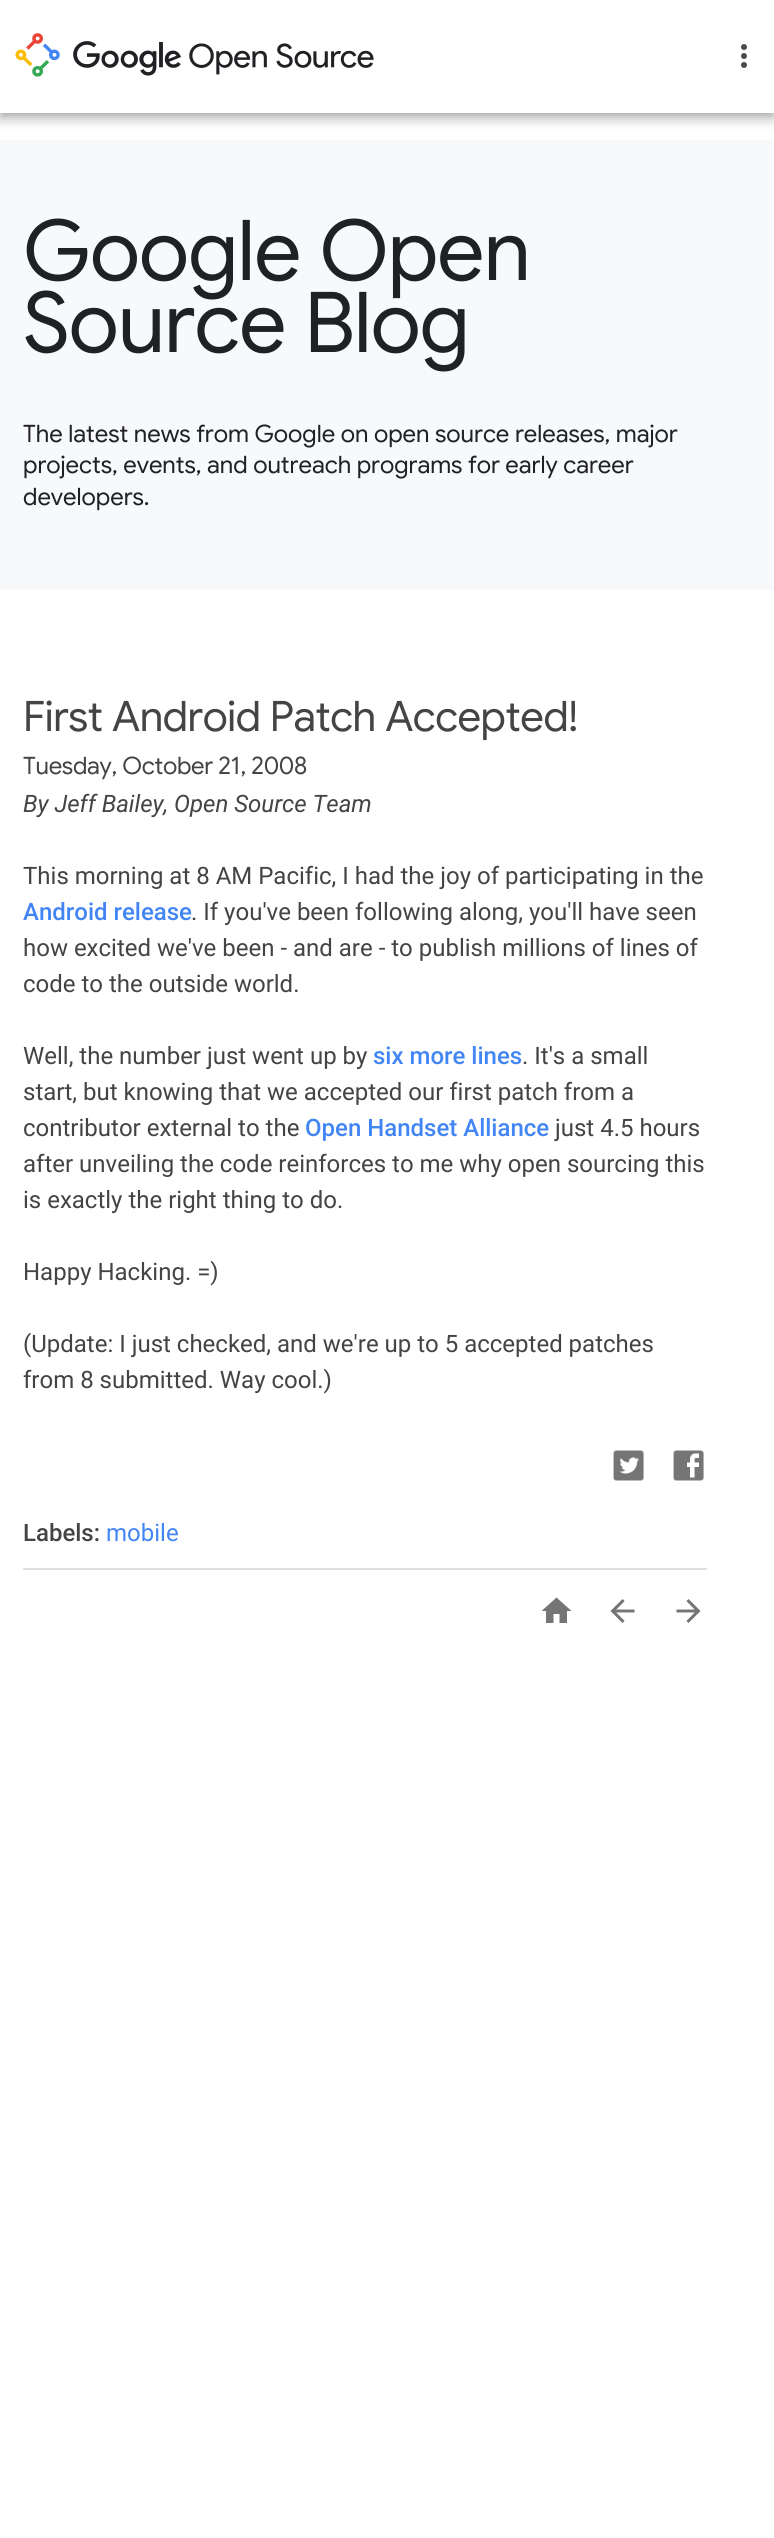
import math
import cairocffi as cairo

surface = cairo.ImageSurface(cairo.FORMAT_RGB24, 774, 2538)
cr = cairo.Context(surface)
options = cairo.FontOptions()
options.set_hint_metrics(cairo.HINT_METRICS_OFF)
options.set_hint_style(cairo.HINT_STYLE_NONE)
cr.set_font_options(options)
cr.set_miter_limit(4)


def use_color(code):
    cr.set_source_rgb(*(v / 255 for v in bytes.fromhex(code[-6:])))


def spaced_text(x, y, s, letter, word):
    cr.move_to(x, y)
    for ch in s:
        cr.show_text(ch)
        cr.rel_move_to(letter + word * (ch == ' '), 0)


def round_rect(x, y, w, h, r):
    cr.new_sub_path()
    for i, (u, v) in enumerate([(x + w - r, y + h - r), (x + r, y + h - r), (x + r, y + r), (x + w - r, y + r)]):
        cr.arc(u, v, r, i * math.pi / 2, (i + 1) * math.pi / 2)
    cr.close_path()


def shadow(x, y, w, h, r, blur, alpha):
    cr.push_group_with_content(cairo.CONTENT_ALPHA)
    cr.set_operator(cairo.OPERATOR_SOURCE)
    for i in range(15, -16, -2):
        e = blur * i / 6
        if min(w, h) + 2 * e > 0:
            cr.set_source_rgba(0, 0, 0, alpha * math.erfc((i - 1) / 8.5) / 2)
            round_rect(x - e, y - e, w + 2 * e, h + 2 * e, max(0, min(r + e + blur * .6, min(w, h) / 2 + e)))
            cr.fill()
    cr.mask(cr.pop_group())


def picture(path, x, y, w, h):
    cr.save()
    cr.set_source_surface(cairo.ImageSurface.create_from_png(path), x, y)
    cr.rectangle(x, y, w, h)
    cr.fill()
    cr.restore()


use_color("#ffffff")
cr.paint()
use_color("#000000")
shadow(0, 6, 774, 113, 0, 6, 0.28)
shadow(0, 0, 774, 113, 0, 3, 0.14)
use_color("#ffffff")
cr.rectangle(0, 0, 774, 113)
cr.fill()
picture("img1.png", 15, 33, 359, 44)
use_color("#4c4c4c")
cr.arc(744, 47, 3, 0, 2 * math.pi)
cr.fill()
cr.arc(744, 56, 3, 0, 2 * math.pi)
cr.fill()
cr.arc(744, 65, 3, 0, 2 * math.pi)
cr.fill()
use_color("#f8f9fa")
cr.rectangle(0, 140, 774, 450)
cr.fill()
cr.select_font_face("Google Sans")
cr.set_font_size(84)
use_color("#202124")
spaced_text(23, 280, "Google Open", -0.75, 0)
spaced_text(23, 352, "Source Blog", -0.75, 0)
cr.set_font_size(24)
cr.move_to(23, 442)
cr.show_text("The latest news from Google on open source releases, major")
cr.move_to(23, 473)
cr.show_text("projects, events, and outreach programs for early career")
cr.move_to(23, 505)
cr.show_text("developers.")
cr.set_font_size(42)
use_color("#444444")
spaced_text(23, 731, "First Android Patch Accepted!", -0.4, 0)
cr.set_font_size(24)
spaced_text(23, 774, "Tuesday, October 21, 2008", -0.25, 0)
cr.select_font_face("Roboto", cairo.FONT_SLANT_ITALIC)
cr.move_to(23, 812)
cr.show_text("By Jeff Bailey, Open Source Team")
cr.select_font_face("Roboto")
cr.move_to(23, 884)
cr.show_text("This morning at 8 AM Pacific, I had the joy of participating in the")
cr.select_font_face("Roboto Medium")
use_color("#4285f4")
cr.move_to(23, 920)
cr.show_text("Android release")
cr.select_font_face("Roboto")
use_color("#444444")
cr.move_to(191, 920)
cr.show_text(". If you've been following along, you'll have seen")
cr.move_to(23, 956)
cr.show_text("how excited we've been - and are - to publish millions of lines of")
cr.move_to(23, 992)
cr.show_text("code to the outside world.")
cr.move_to(23, 1064)
cr.show_text("Well, the number just went up by")
cr.select_font_face("Roboto Medium")
use_color("#4285f4")
cr.move_to(373, 1064)
cr.show_text("six more lines")
cr.select_font_face("Roboto")
use_color("#444444")
cr.move_to(522, 1064)
cr.show_text(". It's a small")
cr.move_to(23, 1100)
cr.show_text("start, but knowing that we accepted our first patch from a")
cr.move_to(23, 1136)
cr.show_text("contributor external to the")
cr.select_font_face("Roboto Medium")
use_color("#4285f4")
cr.move_to(305, 1136)
cr.show_text("Open Handset Alliance")
cr.select_font_face("Roboto")
use_color("#444444")
cr.move_to(555, 1136)
cr.show_text("just 4.5 hours")
cr.move_to(23, 1172)
cr.show_text("after unveiling the code reinforces to me why open sourcing this")
cr.move_to(23, 1208)
cr.show_text("is exactly the right thing to do.")
cr.move_to(23, 1280)
cr.show_text("Happy Hacking. =)")
cr.move_to(23, 1352)
cr.show_text("(Update: I just checked, and we're up to 5 accepted patches")
cr.move_to(23, 1388)
cr.show_text("from 8 submitted. Way cool.)")
picture("img2.png", 613, 1450, 31, 31)
picture("img3.png", 673, 1450, 31, 31)
cr.select_font_face("Roboto Medium")
cr.move_to(23, 1541)
cr.show_text("Labels:")
cr.select_font_face("Roboto")
use_color("#4285f4")
cr.move_to(106, 1541)
cr.show_text("mobile")
use_color("#e0e0e0")
cr.rectangle(23, 1568, 684, 2)
cr.fill()
use_color("#757575")
cr.new_path()
cr.move_to(553.5, 1623)
cr.line_to(546, 1623)
cr.line_to(546, 1611)
cr.line_to(541.5, 1611)
cr.line_to(556.5, 1597.5)
cr.line_to(571.5, 1611)
cr.line_to(567, 1611)
cr.line_to(567, 1623)
cr.line_to(559.5, 1623)
cr.line_to(559.5, 1614)
cr.line_to(553.5, 1614)
cr.close_path()
cr.fill()
picture("img4.png", 610, 1599, 25, 24)
picture("img5.png", 676, 1599, 25, 24)
surface.write_to_png("result.png")
